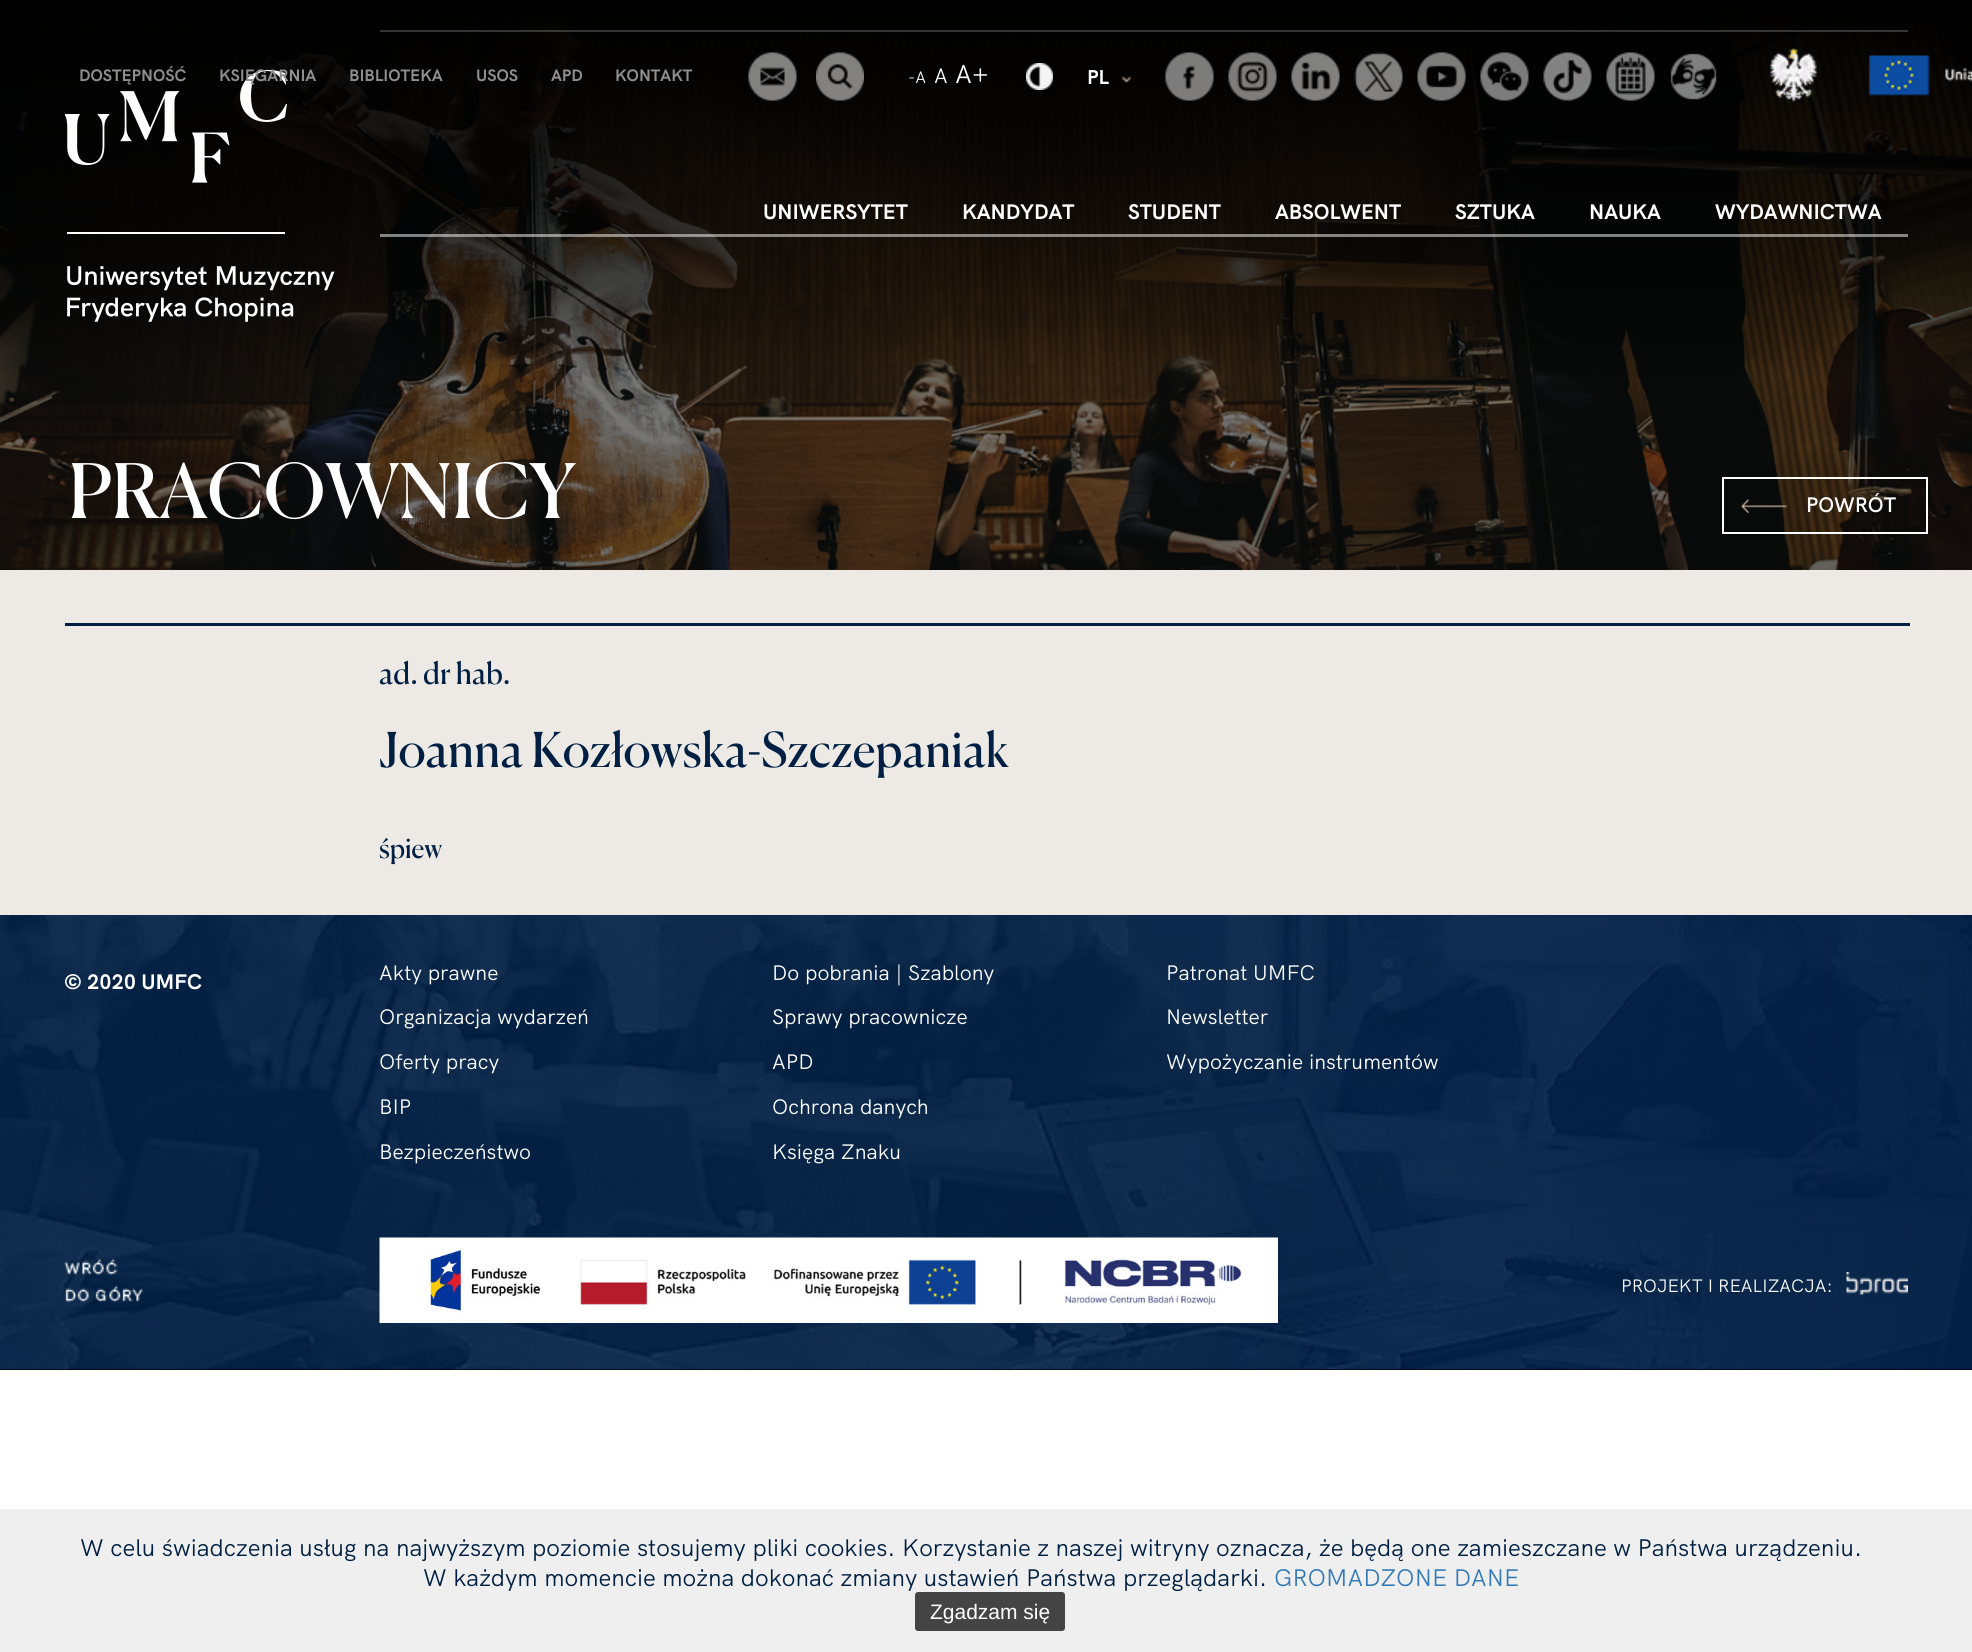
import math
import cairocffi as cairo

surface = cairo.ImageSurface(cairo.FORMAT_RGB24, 1972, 1652)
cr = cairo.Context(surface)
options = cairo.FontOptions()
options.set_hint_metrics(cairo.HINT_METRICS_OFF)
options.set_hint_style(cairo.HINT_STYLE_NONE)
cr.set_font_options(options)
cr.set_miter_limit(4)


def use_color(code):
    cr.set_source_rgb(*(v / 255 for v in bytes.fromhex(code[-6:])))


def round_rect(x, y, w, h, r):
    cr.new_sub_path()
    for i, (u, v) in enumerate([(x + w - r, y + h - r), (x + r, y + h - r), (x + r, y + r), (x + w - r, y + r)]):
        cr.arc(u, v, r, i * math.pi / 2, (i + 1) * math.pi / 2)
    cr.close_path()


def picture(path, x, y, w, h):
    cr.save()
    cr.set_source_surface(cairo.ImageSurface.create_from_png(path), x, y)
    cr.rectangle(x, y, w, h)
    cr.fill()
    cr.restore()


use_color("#ffffff")
cr.paint()
use_color("#edeae6")
cr.rectangle(0, 570, 1972, 345)
cr.fill()
use_color("#000000")
cr.rectangle(0, 3, 1972, 567)
cr.fill()
picture("img20.png", 0, 3, 1972, 567)
gradient = cairo.LinearGradient(986, 0, 986, 381)
gradient.add_color_stop_rgba(0, 0, 0, 0, 1)
gradient.add_color_stop_rgba(0.5, 0, 0, 0, 0.66)
gradient.add_color_stop_rgba(0.59, 0, 0, 0, 0.6)
gradient.add_color_stop_rgba(0.7, 0, 0, 0, 0.5)
gradient.add_color_stop_rgba(0.76, 0, 0, 0, 0.45)
gradient.add_color_stop_rgba(0.8, 0, 0, 0, 0.38)
gradient.add_color_stop_rgba(0.89, 0, 0, 0, 0.23)
gradient.add_color_stop_rgba(1, 0, 0, 0, 0)
cr.set_source(gradient)
cr.rectangle(0, 0, 1972, 377)
cr.fill()
cr.set_source_rgba(1, 1, 1, 0.2)
cr.rectangle(380, 30, 1528, 2)
cr.fill()
cr.select_font_face("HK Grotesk", cairo.FONT_SLANT_NORMAL, cairo.FONT_WEIGHT_BOLD)
cr.set_font_size(16.5)
use_color("#908f8e")
cr.move_to(79, 81)
cr.show_text("DOSTĘPNOŚĆ")
use_color("#ffffff")
cr.new_path()
cr.move_to(267, 122)
cr.curve_to(225, 122, 233, 55, 285, 73)
cr.line_to(286, 84)
cr.line_to(286, 85)
cr.curve_to(279, 75, 274, 71, 267, 71)
cr.curve_to(255, 71, 251, 81, 251, 96)
cr.curve_to(251, 111, 256, 120, 267, 120)
cr.curve_to(276, 120, 281, 114, 286, 104)
cr.line_to(287, 104)
cr.line_to(285, 117)
cr.curve_to(284, 118, 276, 122, 267, 122)
cr.fill()
use_color("#908f8e")
cr.move_to(219, 81)
cr.show_text("KSIĘGARNIA")
cr.move_to(349, 81)
cr.show_text("BIBLIOTEKA")
cr.move_to(476, 81)
cr.show_text("USOS")
cr.move_to(551, 81)
cr.show_text("APD")
cr.move_to(615, 81)
cr.show_text("KONTAKT")
picture("img1.png", 748, 52, 49, 49)
picture("img2.png", 816, 52, 48, 49)
cr.select_font_face("HK Grotesk")
use_color("#ffffff")
cr.move_to(908, 83)
cr.show_text("-A")
cr.set_font_size(21)
cr.move_to(934, 83)
cr.show_text("A")
cr.set_font_size(26)
cr.move_to(955, 83)
cr.show_text("A+")
picture("img3.png", 1026, 63, 27, 27)
cr.select_font_face("HK Grotesk", cairo.FONT_SLANT_NORMAL, cairo.FONT_WEIGHT_BOLD)
cr.set_font_size(20)
cr.move_to(1087, 84)
cr.show_text("PL")
picture("img4.png", 1122, 76, 9, 7)
picture("img5.png", 1165, 52, 49, 49)
picture("img6.png", 1228, 52, 49, 49)
picture("img7.png", 1291, 52, 49, 49)
picture("img8.png", 1354, 52, 49, 49)
picture("img9.png", 1417, 52, 49, 49)
picture("img10.png", 1480, 52, 49, 49)
picture("img11.png", 1543, 52, 49, 49)
picture("img12.png", 1606, 52, 49, 49)
picture("img13.png", 1670, 53, 47, 47)
picture("img14.png", 1769, 48, 49, 55)
picture("img15.png", 1869, 55, 103, 41)
cr.set_source_rgba(1, 1, 1, 0.5)
cr.rectangle(380, 234, 1528, 3)
cr.fill()
cr.set_font_size(21)
use_color("#ffffff")
cr.move_to(763, 219)
cr.show_text("UNIWERSYTET")
cr.move_to(962, 219)
cr.show_text("KANDYDAT")
cr.move_to(1128, 219)
cr.show_text("STUDENT")
cr.move_to(1275, 219)
cr.show_text("ABSOLWENT")
cr.move_to(1455, 219)
cr.show_text("SZTUKA")
cr.move_to(1589, 219)
cr.show_text("NAUKA")
cr.move_to(1715, 219)
cr.show_text("WYDAWNICTWA")
picture("img16.png", 65, 114, 45, 52)
picture("img17.png", 119, 91, 61, 51)
picture("img18.png", 192, 132, 38, 51)
picture("img19.png", 67, 232, 268, 90)
cr.select_font_face("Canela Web")
cr.set_font_size(75)
cr.move_to(68, 518)
cr.show_text("PRACOWNICY")
picture("img21.png", 1741, 499, 46, 14)
cr.rectangle(1723, 478, 204, 55)
cr.stroke()
cr.select_font_face("HK Grotesk SemiBold")
cr.set_font_size(21)
cr.move_to(1806, 512)
cr.show_text("POWRÓT")
use_color("#002043")
cr.rectangle(65, 623, 1845, 3)
cr.fill()
cr.select_font_face("Canela Web")
cr.set_font_size(30)
cr.move_to(379, 684)
cr.show_text("ad. dr hab.")
cr.set_font_size(48)
cr.move_to(379, 767)
cr.show_text("Joanna Kozłowska-Szczepaniak")
cr.set_font_size(27)
cr.move_to(379, 858)
cr.show_text("śpiew")
use_color("#000000")
cr.rectangle(0, 1369, 1972, 1)
cr.fill()
picture("img22.png", 0, 915, 1972, 455)
cr.select_font_face("HK Grotesk", cairo.FONT_SLANT_NORMAL, cairo.FONT_WEIGHT_BOLD)
cr.set_font_size(21)
use_color("#ffffff")
cr.move_to(64, 989)
cr.show_text("© 2020 UMFC")
cr.select_font_face("HK Grotesk")
cr.move_to(379, 980)
cr.show_text("Akty prawne")
cr.move_to(379, 1024)
cr.show_text("Organizacja wydarzeń")
cr.move_to(379, 1069)
cr.show_text("Oferty pracy")
cr.move_to(379, 1114)
cr.show_text("BIP")
cr.move_to(379, 1159)
cr.show_text("Bezpieczeństwo")
cr.move_to(772, 980)
cr.show_text("Do pobrania | Szablony")
cr.move_to(772, 1024)
cr.show_text("Sprawy pracownicze")
cr.move_to(772, 1069)
cr.show_text("APD")
cr.move_to(772, 1114)
cr.show_text("Ochrona danych")
cr.move_to(772, 1159)
cr.show_text("Księga Znaku")
cr.move_to(1166, 980)
cr.show_text("Patronat UMFC")
cr.move_to(1166, 1024)
cr.show_text("Newsletter")
cr.move_to(1166, 1069)
cr.show_text("Wypożyczanie instrumentów")
picture("img23.png", 64, 1258, 79, 44)
picture("img24.png", 379, 1237, 899, 86)
cr.set_font_size(18)
cr.move_to(1621, 1292)
cr.show_text("PROJEKT I REALIZACJA:")
picture("img25.png", 1846, 1272, 62, 23)
use_color("#efefef")
cr.rectangle(0, 1509, 1972, 143)
cr.fill()
cr.set_font_size(24)
use_color("#002043")
cr.move_to(80, 1556)
cr.show_text("W celu świadczenia usług na najwyższym poziomie stosujemy pliki cookies. Korzystanie z naszej witryny oznacza, że będą one zamieszczane w Państwa urządzeniu.")
cr.move_to(423, 1586)
cr.show_text("W każdym momencie można dokonać zmiany ustawień Państwa przeglądarki.")
use_color("#337ab7")
cr.move_to(1274, 1586)
cr.show_text("GROMADZONE DANE")
use_color("#444444")
round_rect(915, 1592, 150, 39, 3)
cr.fill()
cr.select_font_face("Liberation Sans")
cr.set_font_size(21)
use_color("#ffffff")
cr.move_to(930, 1619)
cr.show_text("Zgadzam się")
surface.write_to_png("result.png")
